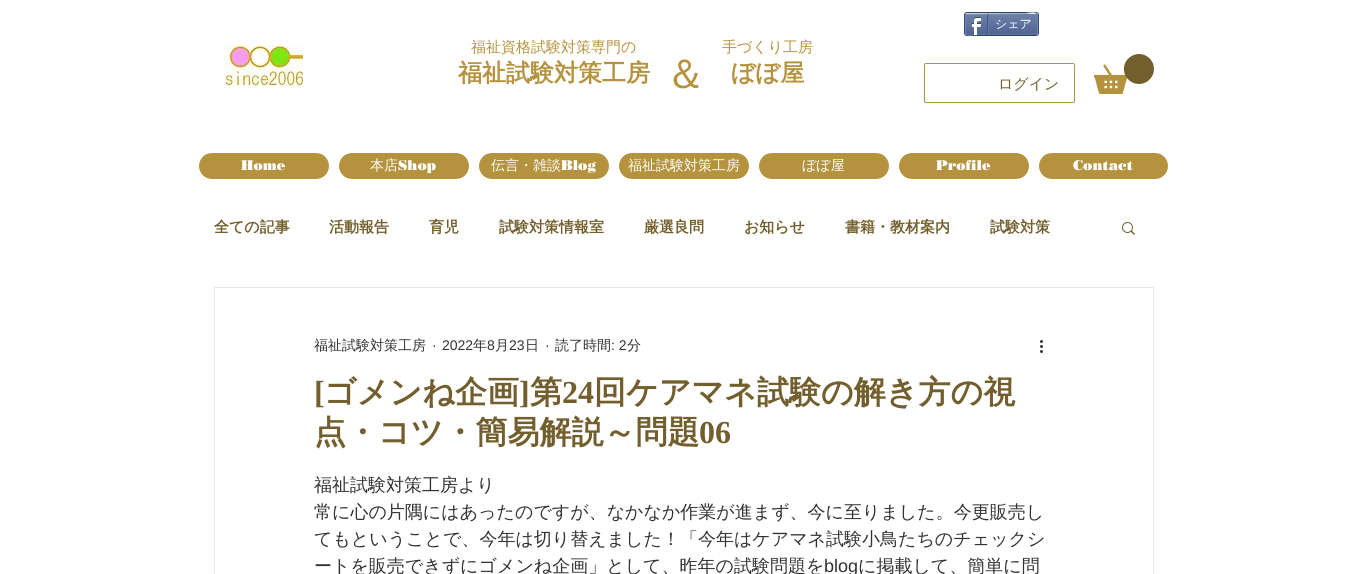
import math
import cairocffi as cairo

surface = cairo.ImageSurface(cairo.FORMAT_RGB24, 1367, 574)
cr = cairo.Context(surface)
options = cairo.FontOptions()
options.set_hint_metrics(cairo.HINT_METRICS_OFF)
options.set_hint_style(cairo.HINT_STYLE_NONE)
cr.set_font_options(options)
cr.set_miter_limit(4)


def use_color(code):
    cr.set_source_rgb(*(v / 255 for v in bytes.fromhex(code[-6:])))


def round_rect(x, y, w, h, r):
    cr.new_sub_path()
    for i, (u, v) in enumerate([(x + w - r, y + h - r), (x + r, y + h - r), (x + r, y + r), (x + w - r, y + r)]):
        cr.arc(u, v, r, i * math.pi / 2, (i + 1) * math.pi / 2)
    cr.close_path()


def picture(path, x, y, w, h):
    cr.save()
    cr.set_source_surface(cairo.ImageSurface.create_from_png(path), x, y)
    cr.rectangle(x, y, w, h)
    cr.fill()
    cr.restore()


use_color("#ffffff")
cr.paint()
round_rect(964.5, 12.5, 74, 23, 2.5)
use_color("#2d4565")
cr.set_line_width(1)
cr.stroke()
picture("img1.png", 965, 14, 73, 21)
cr.new_path()
cr.move_to(966, 14)
cr.line_to(1024.5, 13.5)
cr.curve_to(1028.5, 13.5, 1034, 11, 1037, 14)
use_color("#9aabc6")
cr.stroke()
cr.new_path()
cr.move_to(1037, 14)
cr.curve_to(1038, 14.5, 1038, 33.5, 1037, 34)
use_color("#6f83ad")
cr.stroke()
cr.new_path()
cr.move_to(1037, 34)
cr.line_to(978.5, 34.5)
cr.curve_to(974.5, 34.5, 969, 37, 966, 34)
use_color("#6176a3")
cr.stroke()
cr.new_path()
cr.move_to(966, 34)
cr.curve_to(965, 33.5, 965, 14.5, 966, 14)
use_color("#6f83ad")
cr.stroke()
picture("img2.png", 971, 17, 10, 18)
use_color("#425e85")
cr.rectangle(987, 14, 1, 21)
cr.fill()
cr.select_font_face("WenQuanYi Zen Hei Medium")
cr.set_font_size(12)
use_color("#ffffff")
cr.move_to(995, 28)
cr.show_text("シェア")
use_color("#6176a3")
cr.rectangle(988, 14, 1, 20)
cr.fill()
picture("img3.png", 224, 45, 79, 42)
cr.set_font_size(15)
use_color("#b5933e")
cr.move_to(471, 52)
cr.show_text("福祉資格試験対策専門の")
cr.select_font_face("WenQuanYi Zen Hei", cairo.FONT_SLANT_NORMAL, cairo.FONT_WEIGHT_BOLD)
cr.set_font_size(24)
cr.move_to(458, 81)
cr.show_text("福祉試験対策工房")
cr.select_font_face("WenQuanYi Zen Hei Medium")
cr.set_font_size(41)
cr.move_to(665, 88)
cr.show_text("＆")
cr.set_font_size(15)
cr.move_to(722, 52)
cr.show_text("手づくり工房")
cr.select_font_face("WenQuanYi Zen Hei", cairo.FONT_SLANT_NORMAL, cairo.FONT_WEIGHT_BOLD)
cr.set_font_size(24)
cr.move_to(731, 81)
cr.show_text("ぼぼ屋")
round_rect(924.5, 63.5, 150, 39, 1.5)
cr.stroke()
cr.select_font_face("WenQuanYi Zen Hei Medium")
cr.set_font_size(15)
use_color("#735f2d")
cr.move_to(998, 89)
cr.show_text("ログイン")
picture("img4.png", 1094, 54, 60, 40)
use_color("#b5933e")
round_rect(199, 153, 130, 26, 13)
cr.fill()
cr.select_font_face("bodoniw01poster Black")
cr.set_font_size(14)
use_color("#ffffff")
cr.move_to(241, 170)
cr.show_text("Home")
use_color("#b5933e")
round_rect(339, 153, 130, 26, 13)
cr.fill()
cr.select_font_face("WenQuanYi Zen Hei Medium")
use_color("#ffffff")
cr.move_to(370, 170)
cr.show_text("本店")
cr.select_font_face("bodoniw01poster Black")
cr.move_to(398, 170)
cr.show_text("Shop")
use_color("#b5933e")
round_rect(479, 153, 130, 26, 13)
cr.fill()
cr.select_font_face("WenQuanYi Zen Hei Medium")
use_color("#ffffff")
cr.move_to(491, 170)
cr.show_text("伝言・雑談")
cr.select_font_face("bodoniw01poster Black")
cr.move_to(561, 170)
cr.show_text("Blog")
use_color("#b5933e")
round_rect(619, 153, 130, 26, 13)
cr.fill()
cr.select_font_face("WenQuanYi Zen Hei Medium")
use_color("#ffffff")
cr.move_to(628, 170)
cr.show_text("福祉試験対策工房")
use_color("#b5933e")
round_rect(759, 153, 130, 26, 13)
cr.fill()
use_color("#ffffff")
cr.move_to(802, 170)
cr.show_text("ぼぼ屋")
use_color("#b5933e")
round_rect(899, 153, 130, 26, 13)
cr.fill()
cr.select_font_face("bodoniw01poster Black")
use_color("#ffffff")
cr.move_to(936, 170)
cr.show_text("Profile")
use_color("#b5933e")
round_rect(1039, 153, 129, 26, 13)
cr.fill()
use_color("#ffffff")
cr.move_to(1073, 170)
cr.show_text("Contact")
cr.select_font_face("WenQuanYi Zen Hei", cairo.FONT_SLANT_NORMAL, cairo.FONT_WEIGHT_BOLD)
cr.set_font_size(15)
use_color("#735f2d")
cr.move_to(214, 232)
cr.show_text("全ての記事")
cr.move_to(329, 232)
cr.show_text("活動報告")
cr.move_to(429, 232)
cr.show_text("育児")
cr.move_to(499, 232)
cr.show_text("試験対策情報室")
cr.move_to(644, 232)
cr.show_text("厳選良問")
cr.move_to(744, 232)
cr.show_text("お知らせ")
cr.move_to(845, 232)
cr.show_text("書籍・教材案内")
cr.move_to(990, 232)
cr.show_text("試験対策")
picture("img5.png", 1122, 222, 13, 13)
cr.rectangle(214.5, 287.5, 939, 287)
use_color("#e7e7e7")
cr.stroke()
cr.select_font_face("WenQuanYi Zen Hei Medium")
cr.set_font_size(14)
use_color("#323232")
cr.move_to(314, 350)
cr.show_text("福祉試験対策工房")
cr.select_font_face("Liberation Sans")
cr.move_to(432, 350)
cr.show_text("·")
cr.move_to(442, 350)
cr.show_text("2022")
cr.select_font_face("WenQuanYi Zen Hei Medium")
cr.move_to(473, 350)
cr.show_text("年")
cr.select_font_face("Liberation Sans")
cr.move_to(487, 350)
cr.show_text("8")
cr.select_font_face("WenQuanYi Zen Hei Medium")
cr.move_to(495, 350)
cr.show_text("月")
cr.select_font_face("Liberation Sans")
cr.move_to(509, 350)
cr.show_text("23")
cr.select_font_face("WenQuanYi Zen Hei Medium")
cr.move_to(525, 350)
cr.show_text("日")
cr.select_font_face("Liberation Sans")
cr.move_to(545, 350)
cr.show_text("·")
cr.select_font_face("WenQuanYi Zen Hei Medium")
cr.move_to(555, 350)
cr.show_text("読了時間")
cr.select_font_face("Liberation Sans")
cr.move_to(611, 350)
cr.show_text(": 2")
cr.select_font_face("WenQuanYi Zen Hei Medium")
cr.move_to(627, 350)
cr.show_text("分")
picture("img6.png", 1040, 340, 3, 13)
cr.select_font_face("Liberation Serif", cairo.FONT_SLANT_NORMAL, cairo.FONT_WEIGHT_BOLD)
cr.set_font_size(32)
use_color("#735f2d")
cr.move_to(314, 403)
cr.show_text("[")
cr.select_font_face("WenQuanYi Zen Hei", cairo.FONT_SLANT_NORMAL, cairo.FONT_WEIGHT_BOLD)
cr.move_to(324, 403)
cr.show_text("ゴメンね企画")
cr.select_font_face("Liberation Serif", cairo.FONT_SLANT_NORMAL, cairo.FONT_WEIGHT_BOLD)
cr.move_to(519, 403)
cr.show_text("]")
cr.select_font_face("WenQuanYi Zen Hei", cairo.FONT_SLANT_NORMAL, cairo.FONT_WEIGHT_BOLD)
cr.move_to(530, 403)
cr.show_text("第")
cr.select_font_face("Liberation Serif", cairo.FONT_SLANT_NORMAL, cairo.FONT_WEIGHT_BOLD)
cr.move_to(562, 403)
cr.show_text("24")
cr.select_font_face("WenQuanYi Zen Hei", cairo.FONT_SLANT_NORMAL, cairo.FONT_WEIGHT_BOLD)
cr.move_to(594, 403)
cr.show_text("回ケアマネ試験の解き方の視")
cr.move_to(314, 443)
cr.show_text("点・コツ・簡易解説～問題")
cr.select_font_face("Liberation Serif", cairo.FONT_SLANT_NORMAL, cairo.FONT_WEIGHT_BOLD)
cr.move_to(699, 443)
cr.show_text("06")
cr.select_font_face("WenQuanYi Zen Hei Medium")
cr.set_font_size(18)
use_color("#323232")
cr.move_to(314, 491)
cr.show_text("福祉試験対策工房より")
cr.move_to(314, 518)
cr.show_text("常に心の片隅にはあったのですが、なかなか作業が進まず、今に至りました。今更販売し")
cr.move_to(314, 545)
cr.show_text("てもということで、今年は切り替えました！「今年はケアマネ試験小鳥たちのチェックシ")
cr.move_to(314, 572)
cr.show_text("ートを販売できずにゴメンね企画」として、昨年の試験問題を")
cr.select_font_face("Liberation Sans")
cr.move_to(824, 572)
cr.show_text("blog")
cr.select_font_face("WenQuanYi Zen Hei Medium")
cr.move_to(858, 572)
cr.show_text("に掲載して、簡単に問")
surface.write_to_png("result.png")
